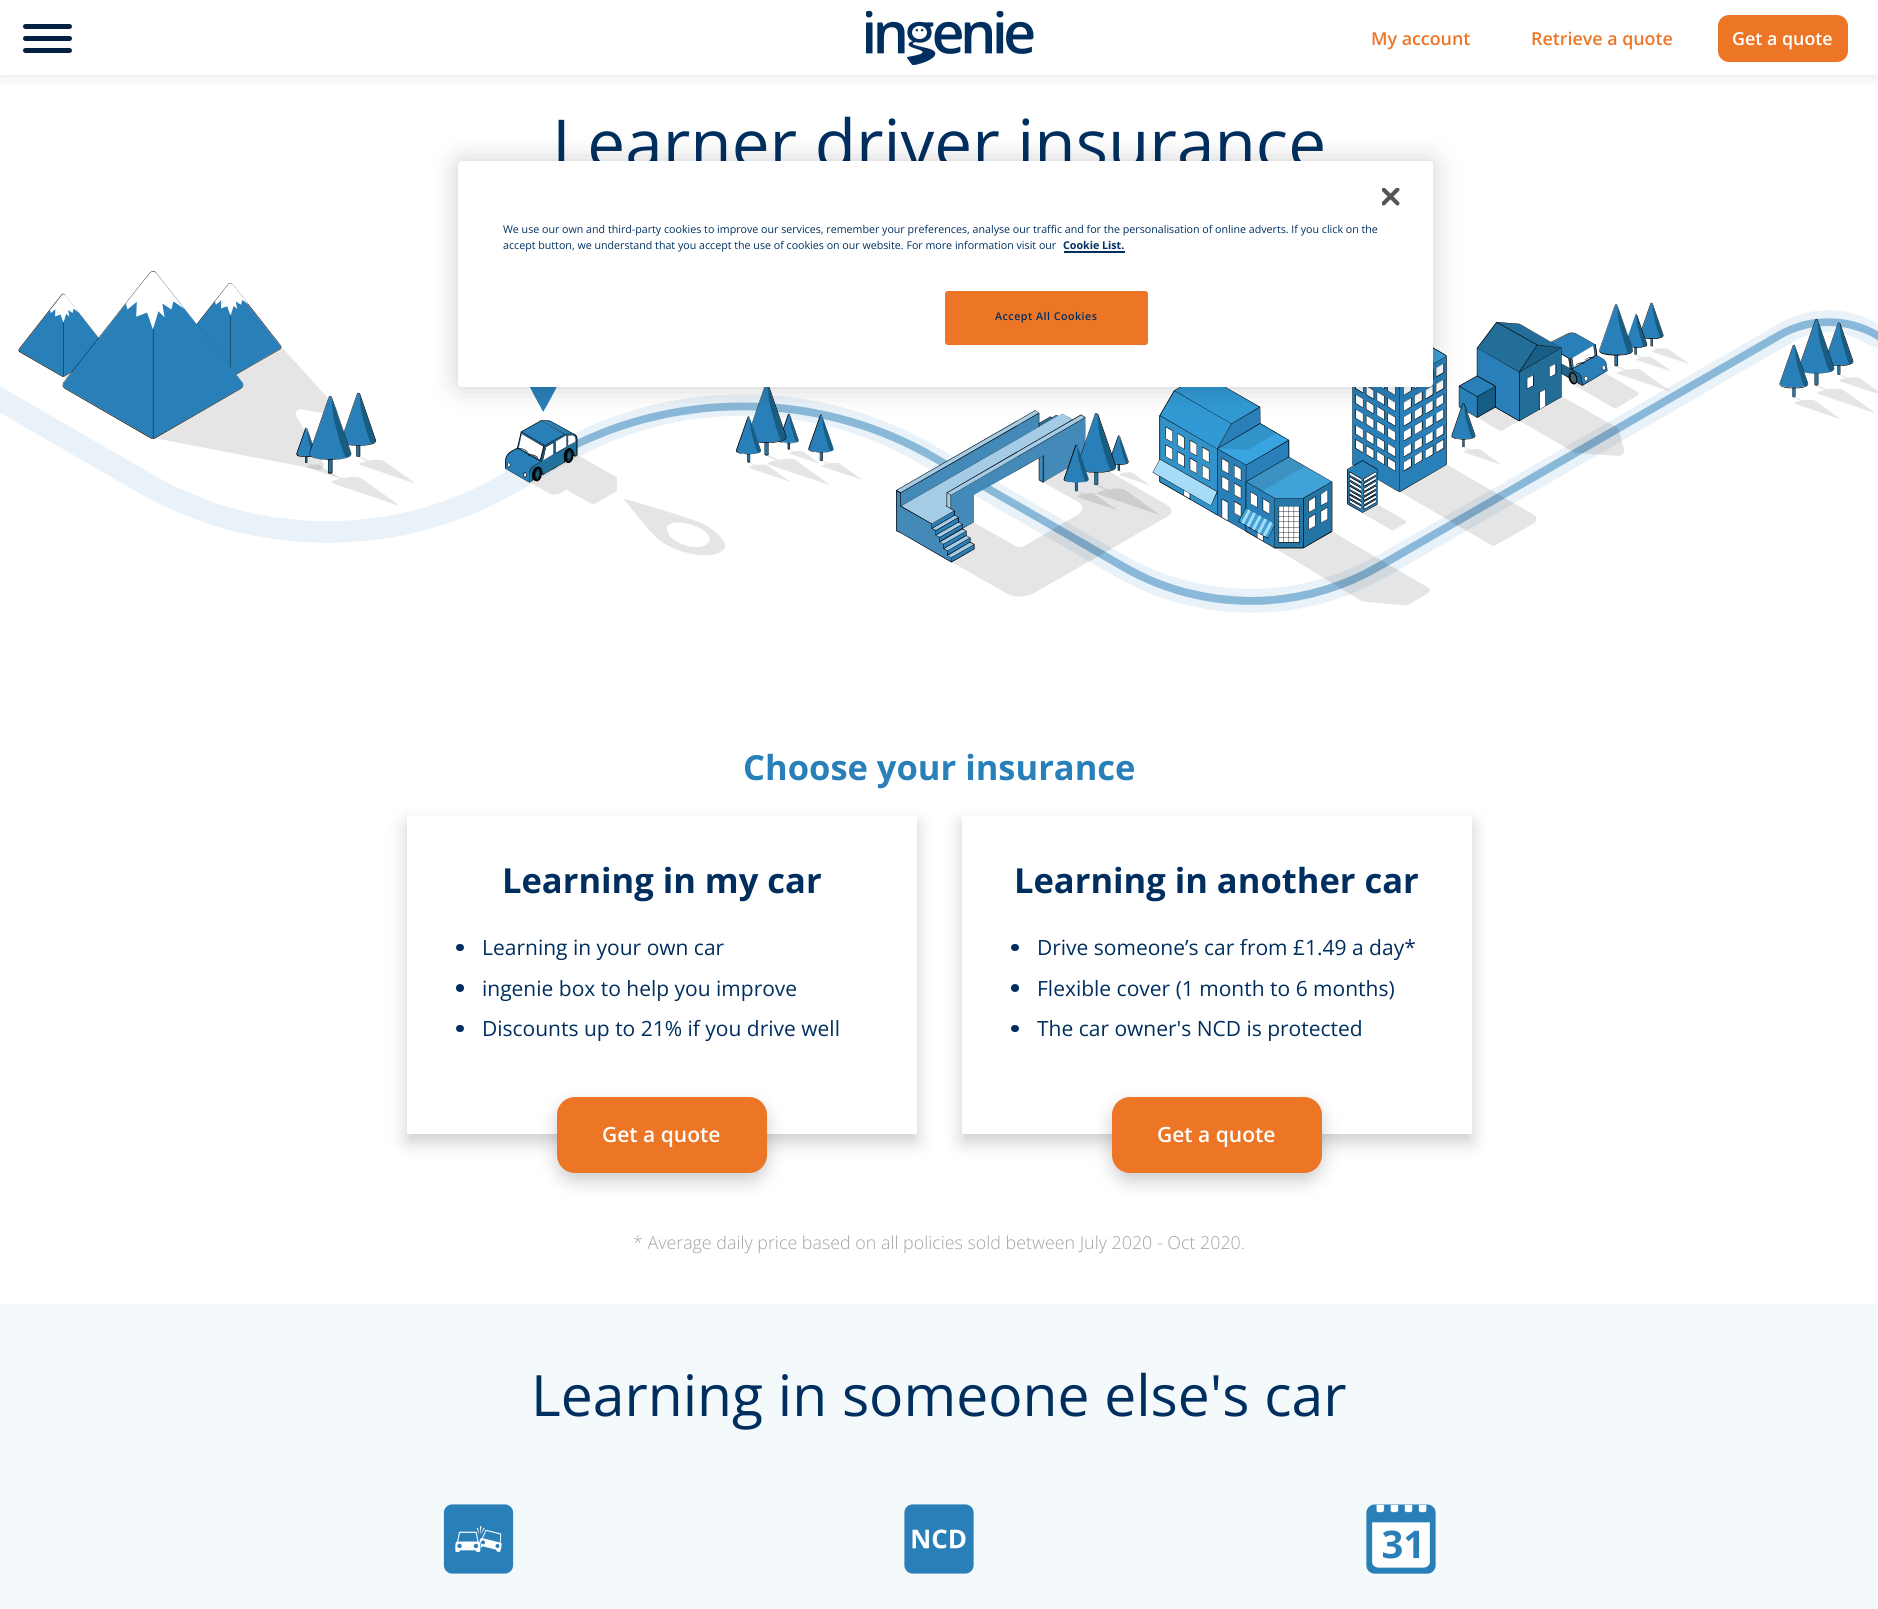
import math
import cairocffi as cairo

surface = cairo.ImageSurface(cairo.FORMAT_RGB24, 1878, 1609)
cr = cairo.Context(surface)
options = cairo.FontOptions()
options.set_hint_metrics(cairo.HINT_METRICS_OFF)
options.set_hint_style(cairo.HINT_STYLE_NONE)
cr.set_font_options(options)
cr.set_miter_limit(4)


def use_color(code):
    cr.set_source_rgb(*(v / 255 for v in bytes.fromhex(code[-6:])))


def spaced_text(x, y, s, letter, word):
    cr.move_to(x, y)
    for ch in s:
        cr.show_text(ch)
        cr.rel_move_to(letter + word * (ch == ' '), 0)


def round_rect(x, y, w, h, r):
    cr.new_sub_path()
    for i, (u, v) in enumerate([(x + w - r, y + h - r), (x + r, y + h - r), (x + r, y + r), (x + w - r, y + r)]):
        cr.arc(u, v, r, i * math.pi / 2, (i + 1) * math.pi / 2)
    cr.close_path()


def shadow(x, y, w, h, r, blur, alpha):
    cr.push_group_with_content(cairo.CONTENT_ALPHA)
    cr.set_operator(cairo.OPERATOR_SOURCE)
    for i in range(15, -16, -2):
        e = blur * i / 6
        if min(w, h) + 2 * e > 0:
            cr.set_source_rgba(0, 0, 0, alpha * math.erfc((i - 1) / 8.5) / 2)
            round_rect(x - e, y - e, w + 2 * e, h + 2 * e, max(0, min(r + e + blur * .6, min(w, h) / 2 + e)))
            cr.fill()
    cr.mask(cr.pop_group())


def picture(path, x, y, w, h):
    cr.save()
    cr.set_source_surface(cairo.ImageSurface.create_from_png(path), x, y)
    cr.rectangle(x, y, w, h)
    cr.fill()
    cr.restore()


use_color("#ffffff")
cr.paint()
cr.save()
cr.rectangle(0, 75, 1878, 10)
cr.clip()
use_color("#666666")
shadow(0, 0, 1878, 75, 0, 7.5, 0.2)
cr.restore()
use_color("#022140")
round_rect(23, 24, 49, 5, 2.5)
cr.fill()
round_rect(23, 36, 49, 5, 2.5)
cr.fill()
round_rect(23, 48, 49, 5, 2.5)
cr.fill()
picture("img1.png", 866, 11, 168, 54)
cr.select_font_face("Open Sans SemiBold")
cr.set_font_size(17.85)
use_color("#ed7626")
cr.move_to(1371, 45)
cr.show_text("My account")
cr.move_to(1531, 45)
cr.show_text("Retrieve a quote")
round_rect(1718, 15, 130, 47, 11)
cr.fill()
use_color("#ffffff")
cr.move_to(1732, 45)
cr.show_text("Get a quote")
picture("img2.png", 0, 271, 1878, 342)
cr.select_font_face("Open Sans")
cr.set_font_size(67.5)
use_color("#002f5f")
cr.move_to(552, 168)
cr.show_text("Learner driver insurance")
use_color("#000000")
shadow(458, 161, 975, 226, 4, 13.5, 0.2)
use_color("#ffffff")
round_rect(458, 161, 975, 226, 4)
cr.fill()
picture("img3.png", 1382, 188, 18, 18)
cr.set_font_size(10.67)
use_color("#002f5f")
cr.move_to(503, 233)
cr.show_text("We use our own and third-party cookies to improve our services, remember your preferences, analyse our traffic and for the personalisation of online adverts. If you click on the")
cr.move_to(503, 249)
cr.show_text("accept button, we understand that you accept the use of cookies on our website. For more information visit our")
cr.select_font_face("Open Sans", cairo.FONT_SLANT_NORMAL, cairo.FONT_WEIGHT_BOLD)
cr.move_to(1063, 249)
cr.show_text("Cookie List.")
cr.rectangle(1064, 251, 61, 2)
cr.fill()
use_color("#ed7626")
round_rect(946, 292, 201, 52, 2)
cr.fill_preserve()
cr.stroke()
cr.select_font_face("Open Sans SemiBold")
use_color("#002f5f")
spaced_text(995, 320, "Accept All Cookies", 0.5, 0)
cr.select_font_face("Open Sans", cairo.FONT_SLANT_NORMAL, cairo.FONT_WEIGHT_BOLD)
cr.set_font_size(34.5)
use_color("#2980b9")
cr.move_to(743, 780)
cr.show_text("Choose your insurance")
use_color("#000000")
shadow(407, 824, 510, 318, 0, 9, 0.2)
use_color("#ffffff")
cr.rectangle(407, 816, 510, 318)
cr.fill()
use_color("#002f5f")
cr.move_to(502, 893)
cr.show_text("Learning in my car")
round_rect(456, 944, 8, 7, 3.5)
cr.fill()
cr.select_font_face("Open Sans")
cr.set_font_size(21)
cr.move_to(482, 955)
cr.show_text("Learning in your own car")
cr.new_path()
cr.arc(460, 988, 4, 0, 2 * math.pi)
cr.fill()
cr.move_to(482, 996)
cr.show_text("ingenie box to help you improve")
round_rect(456, 1025, 8, 7, 3.5)
cr.fill()
cr.move_to(482, 1036)
cr.show_text("Discounts up to 21% if you drive well")
use_color("#000000")
shadow(557, 1104, 210, 77, 18, 9, 0.2)
use_color("#ed7626")
round_rect(558, 1098, 208, 74, 17)
cr.fill_preserve()
cr.stroke()
cr.select_font_face("Open Sans SemiBold")
use_color("#ffffff")
cr.move_to(602, 1142)
cr.show_text("Get a quote")
use_color("#000000")
shadow(962, 824, 510, 318, 0, 9, 0.2)
use_color("#ffffff")
cr.rectangle(962, 816, 510, 318)
cr.fill()
cr.select_font_face("Open Sans", cairo.FONT_SLANT_NORMAL, cairo.FONT_WEIGHT_BOLD)
cr.set_font_size(34.5)
use_color("#002f5f")
cr.move_to(1014, 893)
cr.show_text("Learning in another car")
round_rect(1011, 944, 8, 7, 3.5)
cr.fill()
cr.select_font_face("Open Sans")
cr.set_font_size(21)
cr.move_to(1037, 955)
cr.show_text("Drive someone’s car from £1.49 a day*")
cr.new_path()
cr.arc(1015, 988, 4, 0, 2 * math.pi)
cr.fill()
cr.move_to(1037, 996)
cr.show_text("Flexible cover (1 month to 6 months)")
round_rect(1011, 1025, 8, 7, 3.5)
cr.fill()
cr.move_to(1037, 1036)
cr.show_text("The car owner's NCD is protected")
use_color("#000000")
shadow(1112, 1104, 210, 77, 18, 9, 0.2)
use_color("#ed7626")
round_rect(1113, 1098, 208, 74, 17)
cr.fill_preserve()
cr.stroke()
cr.select_font_face("Open Sans SemiBold")
use_color("#ffffff")
cr.move_to(1157, 1142)
cr.show_text("Get a quote")
cr.select_font_face("Open Sans Light")
cr.set_font_size(17.85)
use_color("#a3a3a3")
cr.move_to(633, 1249)
cr.show_text("* Average daily price based on all policies sold between July 2020 - Oct 2020.")
use_color("#f4f9fc")
cr.rectangle(0, 1304, 1878, 305)
cr.fill()
cr.select_font_face("Open Sans")
cr.set_font_size(57)
use_color("#002f5f")
cr.move_to(531, 1416)
cr.show_text("Learning in someone else's car")
picture("img4.png", 443, 1504, 71, 70)
picture("img5.png", 904, 1504, 70, 70)
picture("img6.png", 1366, 1504, 70, 70)
surface.write_to_png("result.png")
